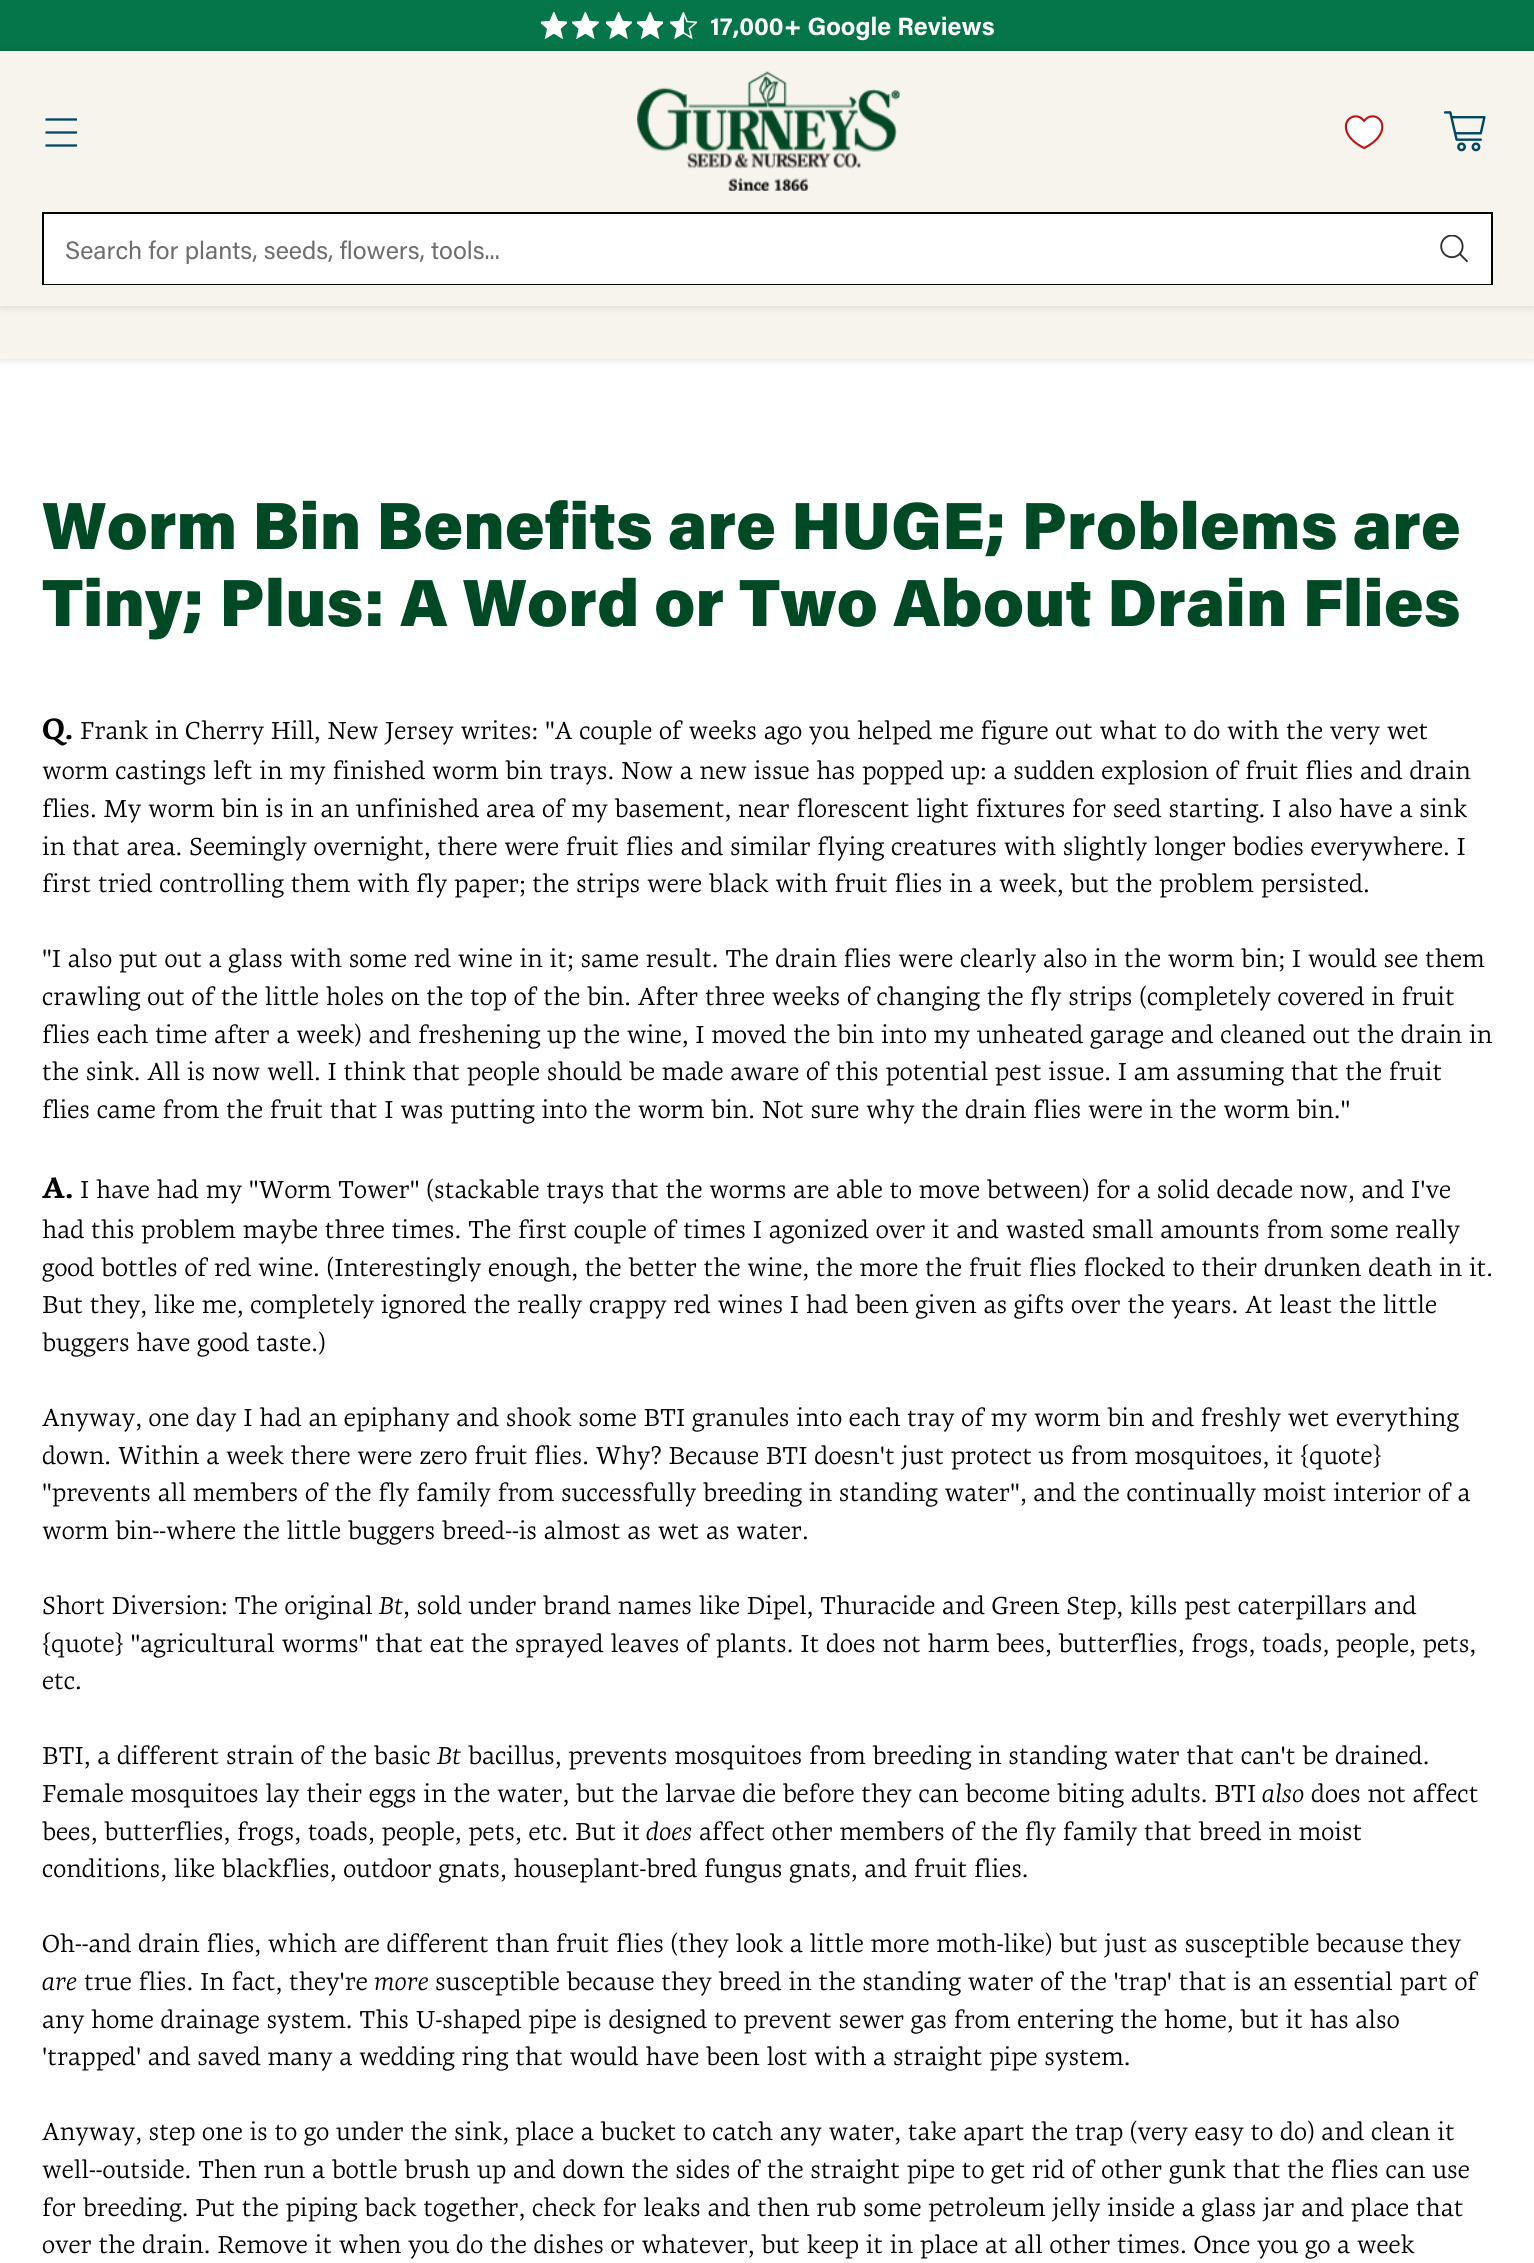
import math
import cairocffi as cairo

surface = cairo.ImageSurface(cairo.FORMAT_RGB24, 1534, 2263)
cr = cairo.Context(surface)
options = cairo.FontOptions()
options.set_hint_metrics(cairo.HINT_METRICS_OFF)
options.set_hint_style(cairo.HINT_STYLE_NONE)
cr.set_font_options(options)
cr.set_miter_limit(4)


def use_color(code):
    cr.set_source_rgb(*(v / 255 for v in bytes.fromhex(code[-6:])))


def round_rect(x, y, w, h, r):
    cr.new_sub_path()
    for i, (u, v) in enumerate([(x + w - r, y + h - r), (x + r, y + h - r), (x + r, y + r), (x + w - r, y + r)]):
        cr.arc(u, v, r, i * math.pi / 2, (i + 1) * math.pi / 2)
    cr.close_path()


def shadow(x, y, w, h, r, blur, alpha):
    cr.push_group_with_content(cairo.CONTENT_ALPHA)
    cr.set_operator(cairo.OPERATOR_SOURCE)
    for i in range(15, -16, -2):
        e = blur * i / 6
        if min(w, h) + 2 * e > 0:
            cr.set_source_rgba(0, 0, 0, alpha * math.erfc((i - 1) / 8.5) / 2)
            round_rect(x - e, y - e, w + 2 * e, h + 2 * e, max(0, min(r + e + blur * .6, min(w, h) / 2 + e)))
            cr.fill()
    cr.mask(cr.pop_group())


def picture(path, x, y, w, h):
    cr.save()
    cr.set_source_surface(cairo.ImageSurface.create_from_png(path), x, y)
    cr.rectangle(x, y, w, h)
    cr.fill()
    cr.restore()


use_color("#ffffff")
cr.paint()
use_color("#05764a")
cr.rectangle(0, 0, 1534, 51)
cr.fill()
picture("img1.png", 541, 12, 26, 27)
picture("img2.png", 572, 12, 27, 27)
picture("img3.png", 606, 12, 26, 27)
picture("img4.png", 637, 12, 26, 27)
picture("img5.png", 670, 12, 27, 27)
cr.select_font_face("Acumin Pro", cairo.FONT_SLANT_NORMAL, cairo.FONT_WEIGHT_BOLD)
cr.set_font_size(25.07)
use_color("#ffffff")
cr.move_to(710, 35)
cr.show_text("17,000+ Google Reviews")
use_color("#000000")
shadow(0, 306, 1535, 53, 0, 4.5, 0.15)
use_color("#f6f4ed")
cr.rectangle(0, 306, 1534, 53)
cr.fill()
use_color("#000000")
shadow(0, 51, 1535, 255, 0, 4.5, 0.15)
use_color("#f6f4ed")
cr.rectangle(0, 51, 1534, 255)
cr.fill()
cr.new_path()
cr.move_to(45.5, 132.5)
cr.line_to(77, 132.5)
cr.move_to(45.5, 119.5)
cr.line_to(77, 119.5)
cr.move_to(45.5, 145.5)
cr.line_to(77, 145.5)
use_color("#004665")
cr.set_line_width(2.3)
cr.stroke()
picture("img6.png", 637, 71, 263, 120)
picture("img7.png", 1344, 115, 40, 35)
picture("img8.png", 1443, 111, 43, 41)
cr.rectangle(43, 213, 1449, 71)
use_color("#000000")
cr.set_line_width(2)
cr.stroke()
use_color("#ffffff")
cr.rectangle(44, 214, 1447, 70)
cr.fill()
cr.select_font_face("Acumin Pro")
use_color("#6e6e6e")
cr.move_to(65, 259)
cr.show_text("Search for plants, seeds, flowers, tools...")
picture("img9.png", 1440, 235, 28, 28)
cr.select_font_face("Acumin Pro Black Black")
cr.set_font_size(66.6)
use_color("#004925")
cr.move_to(42, 549)
cr.show_text("Worm Bin Benefits are HUGE; Problems are")
cr.move_to(42, 626)
cr.show_text("Tiny; Plus: A Word or Two About Drain Flies")
cr.select_font_face("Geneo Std", cairo.FONT_SLANT_NORMAL, cairo.FONT_WEIGHT_BOLD)
cr.set_font_size(30)
use_color("#000000")
cr.move_to(42, 739)
cr.show_text("Q.")
cr.select_font_face("Geneo Std")
cr.set_font_size(25.07)
cr.move_to(80, 739)
cr.show_text("Frank in Cherry Hill, New Jersey writes: \"A couple of weeks ago you helped me figure out what to do with the very wet")
cr.move_to(42, 779)
cr.show_text("worm castings left in my finished worm bin trays. Now a new issue has popped up: a sudden explosion of fruit flies and drain")
cr.move_to(42, 817)
cr.show_text("flies. My worm bin is in an unfinished area of my basement, near florescent light fixtures for seed starting. I also have a sink")
cr.move_to(42, 855)
cr.show_text("in that area. Seemingly overnight, there were fruit flies and similar flying creatures with slightly longer bodies everywhere. I")
cr.move_to(42, 892)
cr.show_text("first tried controlling them with fly paper; the strips were black with fruit flies in a week, but the problem persisted.")
cr.move_to(42, 967)
cr.show_text("\"I also put out a glass with some red wine in it; same result. The drain flies were clearly also in the worm bin; I would see them")
cr.move_to(42, 1005)
cr.show_text("crawling out of the little holes on the top of the bin. After three weeks of changing the fly strips (completely covered in fruit")
cr.move_to(42, 1043)
cr.show_text("flies each time after a week) and freshening up the wine, I moved the bin into my unheated garage and cleaned out the drain in")
cr.move_to(42, 1080)
cr.show_text("the sink. All is now well. I think that people should be made aware of this potential pest issue. I am assuming that the fruit")
cr.move_to(42, 1118)
cr.show_text("flies came from the fruit that I was putting into the worm bin. Not sure why the drain flies were in the worm bin.\"")
cr.select_font_face("Geneo Std", cairo.FONT_SLANT_NORMAL, cairo.FONT_WEIGHT_BOLD)
cr.set_font_size(30)
cr.move_to(42, 1198)
cr.show_text("A.")
cr.select_font_face("Geneo Std")
cr.set_font_size(25.07)
cr.move_to(80, 1198)
cr.show_text("I have had my \"Worm Tower\" (stackable trays that the worms are able to move between) for a solid decade now, and I've")
cr.move_to(42, 1238)
cr.show_text("had this problem maybe three times. The first couple of times I agonized over it and wasted small amounts from some really")
cr.move_to(42, 1276)
cr.show_text("good bottles of red wine. (Interestingly enough, the better the wine, the more the fruit flies flocked to their drunken death in it.")
cr.move_to(42, 1313)
cr.show_text("But they, like me, completely ignored the really crappy red wines I had been given as gifts over the years. At least the little")
cr.move_to(42, 1351)
cr.show_text("buggers have good taste.)")
cr.move_to(42, 1426)
cr.show_text("Anyway, one day I had an epiphany and shook some BTI granules into each tray of my worm bin and freshly wet everything")
cr.move_to(42, 1464)
cr.show_text("down. Within a week there were zero fruit flies. Why? Because BTI doesn't just protect us from mosquitoes, it {quote}")
cr.move_to(42, 1501)
cr.show_text("\"prevents all members of the fly family from successfully breeding in standing water\", and the continually moist interior of a")
cr.move_to(42, 1539)
cr.show_text("worm bin--where the little buggers breed--is almost as wet as water.")
cr.move_to(42, 1614)
cr.show_text("Short Diversion: The original")
cr.select_font_face("Geneo Std", cairo.FONT_SLANT_ITALIC)
cr.move_to(379, 1614)
cr.show_text("Bt")
cr.select_font_face("Geneo Std")
cr.move_to(403, 1614)
cr.show_text(", sold under brand names like Dipel, Thuracide and Green Step, kills pest caterpillars and")
cr.move_to(42, 1652)
cr.show_text("{quote} \"agricultural worms\" that eat the sprayed leaves of plants. It does not harm bees, butterflies, frogs, toads, people, pets,")
cr.move_to(42, 1689)
cr.show_text("etc.")
cr.move_to(42, 1764)
cr.show_text("BTI, a different strain of the basic")
cr.select_font_face("Geneo Std", cairo.FONT_SLANT_ITALIC)
cr.move_to(437, 1764)
cr.show_text("Bt")
cr.select_font_face("Geneo Std")
cr.move_to(468, 1764)
cr.show_text("bacillus, prevents mosquitoes from breeding in standing water that can't be drained.")
cr.move_to(42, 1802)
cr.show_text("Female mosquitoes lay their eggs in the water, but the larvae die before they can become biting adults. BTI")
cr.select_font_face("Geneo Std", cairo.FONT_SLANT_ITALIC)
cr.move_to(1262, 1802)
cr.show_text("also")
cr.select_font_face("Geneo Std")
cr.move_to(1311, 1802)
cr.show_text("does not affect")
cr.move_to(42, 1840)
cr.show_text("bees, butterflies, frogs, toads, people, pets, etc. But it")
cr.select_font_face("Geneo Std", cairo.FONT_SLANT_ITALIC)
cr.move_to(646, 1840)
cr.show_text("does")
cr.select_font_face("Geneo Std")
cr.move_to(699, 1840)
cr.show_text("affect other members of the fly family that breed in moist")
cr.move_to(42, 1877)
cr.show_text("conditions, like blackflies, outdoor gnats, houseplant-bred fungus gnats, and fruit flies.")
cr.move_to(42, 1952)
cr.show_text("Oh--and drain flies, which are different than fruit flies (they look a little more moth-like) but just as susceptible because they")
cr.select_font_face("Geneo Std", cairo.FONT_SLANT_ITALIC)
cr.move_to(42, 1990)
cr.show_text("are")
cr.select_font_face("Geneo Std")
cr.move_to(84, 1990)
cr.show_text("true flies. In fact, they're")
cr.select_font_face("Geneo Std", cairo.FONT_SLANT_ITALIC)
cr.move_to(374, 1990)
cr.show_text("more")
cr.select_font_face("Geneo Std")
cr.move_to(435, 1990)
cr.show_text("susceptible because they breed in the standing water of the 'trap' that is an essential part of")
cr.move_to(42, 2028)
cr.show_text("any home drainage system. This U-shaped pipe is designed to prevent sewer gas from entering the home, but it has also")
cr.move_to(42, 2065)
cr.show_text("'trapped' and saved many a wedding ring that would have been lost with a straight pipe system.")
cr.move_to(42, 2140)
cr.show_text("Anyway, step one is to go under the sink, place a bucket to catch any water, take apart the trap (very easy to do) and clean it")
cr.move_to(42, 2178)
cr.show_text("well--outside. Then run a bottle brush up and down the sides of the straight pipe to get rid of other gunk that the flies can use")
cr.move_to(42, 2216)
cr.show_text("for breeding. Put the piping back together, check for leaks and then rub some petroleum jelly inside a glass jar and place that")
cr.move_to(42, 2253)
cr.show_text("over the drain. Remove it when you do the dishes or whatever, but keep it in place at all other times. Once you go a week")
surface.write_to_png("result.png")
